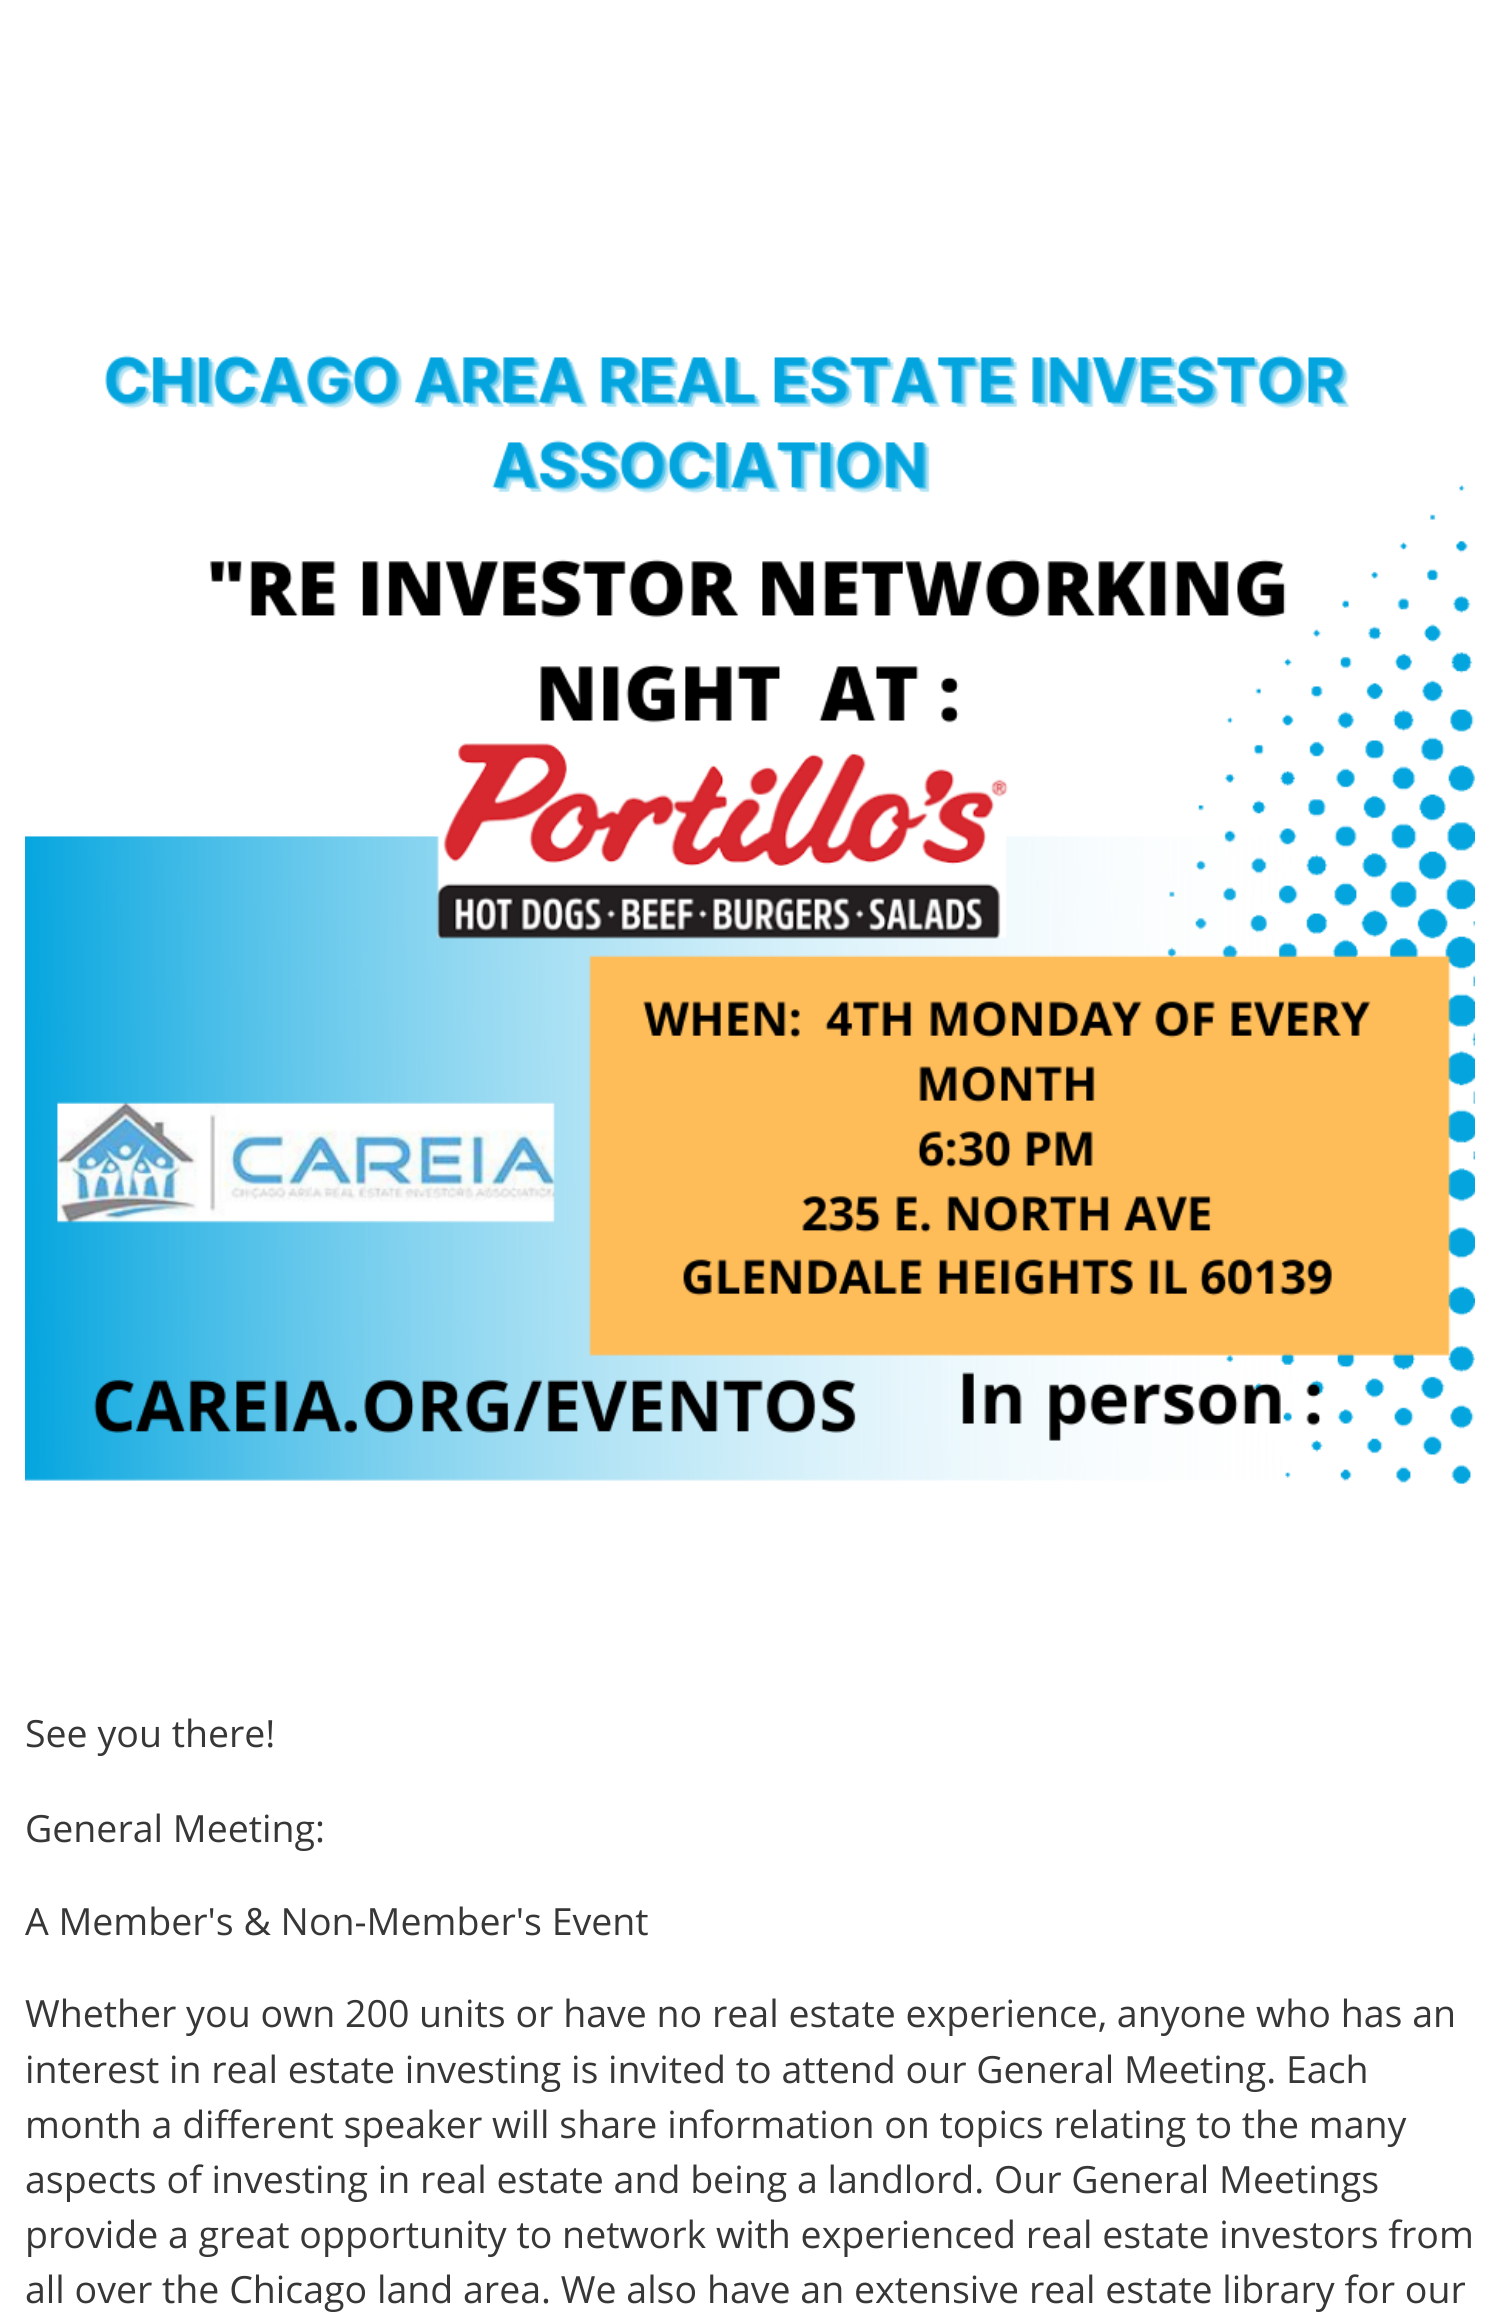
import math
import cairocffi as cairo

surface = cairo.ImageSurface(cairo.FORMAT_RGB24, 1500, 2312)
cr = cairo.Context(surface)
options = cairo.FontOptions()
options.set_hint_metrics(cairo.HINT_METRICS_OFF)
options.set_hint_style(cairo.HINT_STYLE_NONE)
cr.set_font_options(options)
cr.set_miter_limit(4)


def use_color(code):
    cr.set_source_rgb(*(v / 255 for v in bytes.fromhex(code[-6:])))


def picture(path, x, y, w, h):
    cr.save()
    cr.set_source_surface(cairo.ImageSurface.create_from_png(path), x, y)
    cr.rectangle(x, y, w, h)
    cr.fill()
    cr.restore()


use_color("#ffffff")
cr.paint()
picture("img1.png", 25, 355, 1450, 1129)
cr.select_font_face("Open Sans")
cr.set_font_size(37.5)
use_color("#373737")
cr.move_to(25, 1747)
cr.show_text("See you there!")
cr.move_to(25, 1842)
cr.show_text("General Meeting:")
cr.move_to(25, 1935)
cr.show_text("A Member's & Non-Member's Event")
cr.move_to(25, 2027)
cr.show_text("Whether you own 200 units or have no real estate experience, anyone who has an")
cr.move_to(25, 2083)
cr.show_text("interest in real estate investing is invited to attend our General Meeting. Each")
cr.move_to(25, 2138)
cr.show_text("month a different speaker will share information on topics relating to the many")
cr.move_to(25, 2193)
cr.show_text("aspects of investing in real estate and being a landlord. Our General Meetings")
cr.move_to(25, 2248)
cr.show_text("provide a great opportunity to network with experienced real estate investors from")
cr.move_to(25, 2303)
cr.show_text("all over the Chicago land area. We also have an extensive real estate library for our")
surface.write_to_png("result.png")
